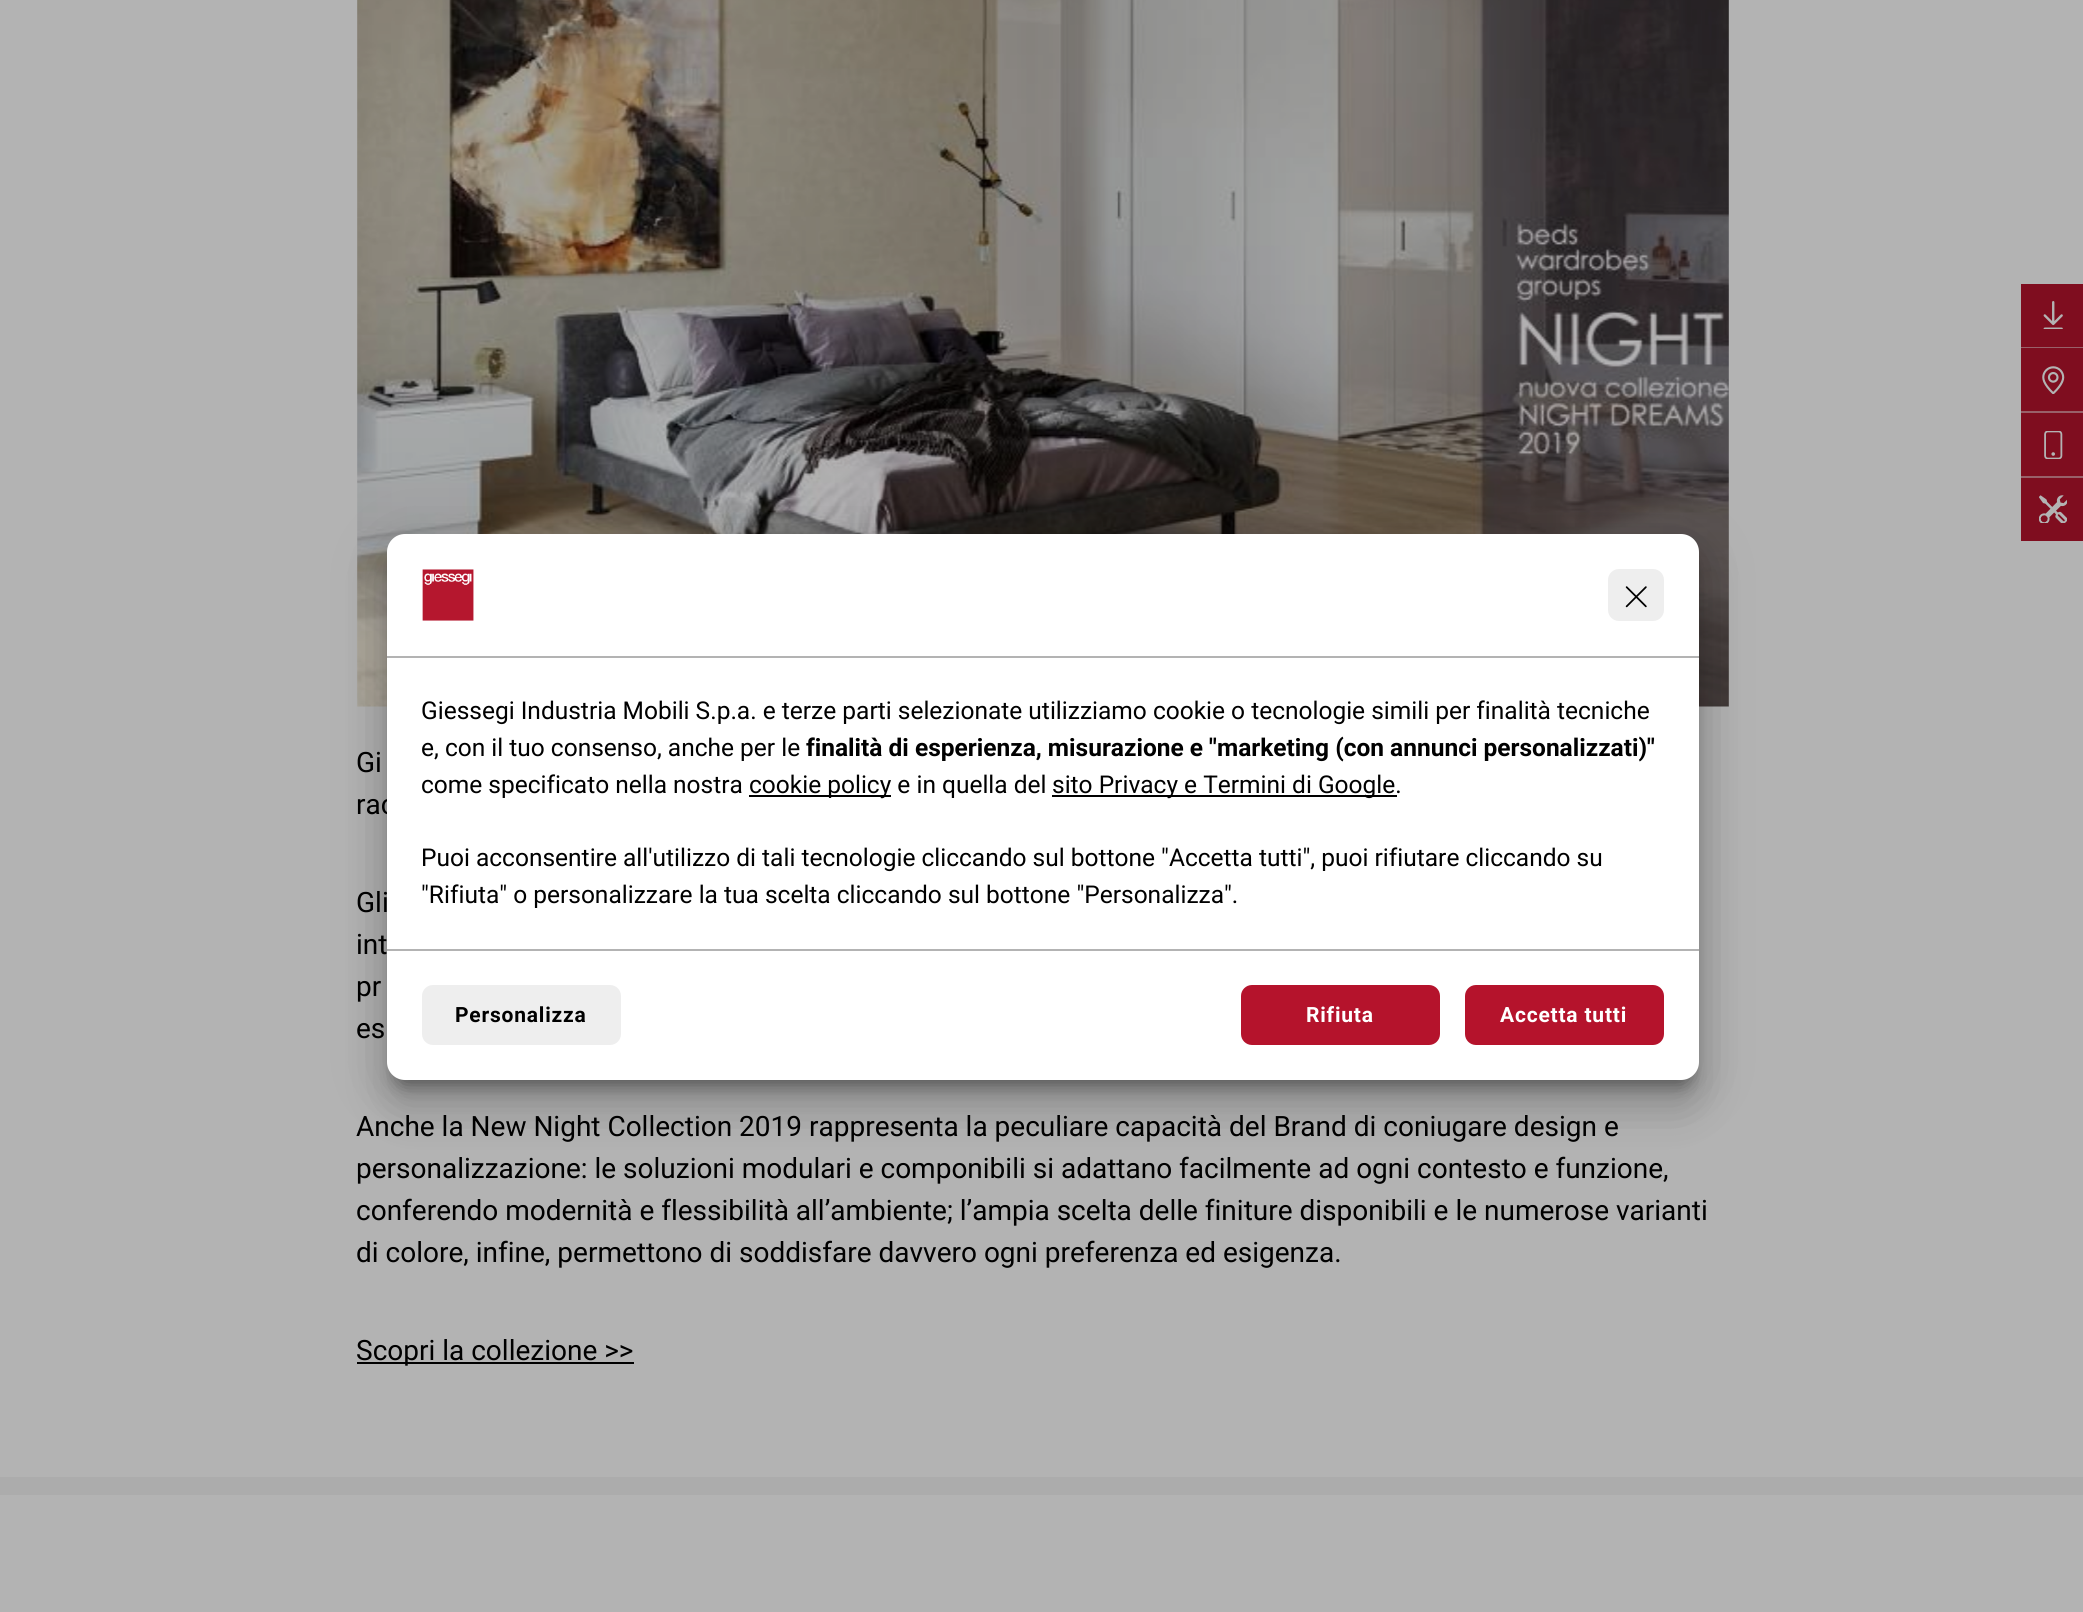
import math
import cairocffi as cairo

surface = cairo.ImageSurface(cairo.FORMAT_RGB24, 2083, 1612)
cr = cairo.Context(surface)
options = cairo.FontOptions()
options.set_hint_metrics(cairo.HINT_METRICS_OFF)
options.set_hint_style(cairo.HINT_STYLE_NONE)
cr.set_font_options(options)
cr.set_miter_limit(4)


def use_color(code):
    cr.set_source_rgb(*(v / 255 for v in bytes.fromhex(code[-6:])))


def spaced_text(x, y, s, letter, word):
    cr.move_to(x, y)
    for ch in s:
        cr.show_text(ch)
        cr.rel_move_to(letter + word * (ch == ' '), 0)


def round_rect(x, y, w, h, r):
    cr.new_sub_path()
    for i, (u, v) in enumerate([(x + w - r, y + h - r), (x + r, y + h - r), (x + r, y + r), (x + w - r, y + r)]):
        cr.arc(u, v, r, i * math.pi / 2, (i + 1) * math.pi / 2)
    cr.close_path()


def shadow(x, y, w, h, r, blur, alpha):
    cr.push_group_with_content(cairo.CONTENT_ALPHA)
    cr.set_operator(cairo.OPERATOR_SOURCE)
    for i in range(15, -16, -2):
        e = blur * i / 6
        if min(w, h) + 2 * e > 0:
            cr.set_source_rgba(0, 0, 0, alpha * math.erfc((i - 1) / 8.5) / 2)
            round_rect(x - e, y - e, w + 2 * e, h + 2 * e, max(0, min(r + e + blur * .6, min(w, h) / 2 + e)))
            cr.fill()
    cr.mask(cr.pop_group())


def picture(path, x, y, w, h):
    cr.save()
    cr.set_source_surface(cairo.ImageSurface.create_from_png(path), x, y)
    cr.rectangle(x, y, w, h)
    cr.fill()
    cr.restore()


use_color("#b3b3b3")
cr.paint()
use_color("#996069")
cr.rectangle(2021, 347, 62, 1)
cr.fill()
use_color("#7f0d1f")
cr.rectangle(2021, 284, 62, 63)
cr.fill()
picture("img1.png", 2043, 301, 20, 28)
use_color("#996069")
cr.rectangle(2021, 411, 62, 2)
cr.fill()
use_color("#7f0d1f")
cr.rectangle(2021, 348, 62, 63)
cr.fill()
picture("img2.png", 2042, 366, 23, 28)
use_color("#996069")
cr.rectangle(2021, 476, 62, 2)
cr.fill()
use_color("#7f0d1f")
cr.rectangle(2021, 413, 62, 63)
cr.fill()
picture("img3.png", 2044, 431, 19, 28)
cr.rectangle(2021, 478, 62, 63)
cr.fill()
picture("img4.png", 2039, 495, 28, 28)
picture("img7.png", 357, 0, 1372, 707)
use_color("#000000")
shadow(396, 557, 1295, 528, 9, 9, 0.4)
shadow(378, 536, 1330, 563, 26, 26, 0.12)
shadow(383, 558, 1320, 553, 21, 21, 0.14)
cr.select_font_face("Roboto")
cr.set_font_size(28)
use_color("#000000")
cr.move_to(356, 814)
cr.show_text("rac")
use_color("#ffffff")
round_rect(387, 534, 1312, 546, 18)
cr.fill()
use_color("#b3b3b3")
cr.rectangle(387, 656, 1312, 2)
cr.fill()
picture("img5.png", 422, 569, 52, 52)
use_color("#eeeeee")
round_rect(1608, 569, 56, 52, 11)
cr.fill()
picture("img6.png", 1625, 586, 22, 22)
cr.set_font_size(24.5)
use_color("#000000")
cr.move_to(421, 719)
cr.show_text("Giessegi Industria Mobili S.p.a. e terze parti selezionate utilizziamo cookie o tecnologie simili per finalità tecniche")
cr.move_to(421, 756)
cr.show_text("e, con il tuo consenso, anche per le")
cr.select_font_face("Roboto", cairo.FONT_SLANT_NORMAL, cairo.FONT_WEIGHT_BOLD)
cr.move_to(806, 756)
cr.show_text("finalità di esperienza, misurazione e \"marketing (con annunci personalizzati)\"")
cr.select_font_face("Roboto")
cr.move_to(421, 793)
cr.show_text("come specificato nella nostra")
cr.rectangle(749, 795, 142, 2)
cr.fill()
cr.move_to(749, 793)
cr.show_text("cookie policy e in quella del")
cr.rectangle(1052, 795, 345, 2)
cr.fill()
cr.move_to(1052, 793)
cr.show_text("sito Privacy e Termini di Google.")
cr.move_to(421, 866)
cr.show_text("Puoi acconsentire all'utilizzo di tali tecnologie cliccando sul bottone \"Accetta tutti\", puoi rifiutare cliccando su")
cr.move_to(421, 903)
cr.show_text("\"Rifiuta\" o personalizzare la tua scelta cliccando sul bottone \"Personalizza\".")
use_color("#b3b3b3")
cr.rectangle(387, 949, 1312, 2)
cr.fill()
use_color("#eeeeee")
round_rect(422, 985, 199, 60, 11)
cr.fill()
cr.select_font_face("Roboto", cairo.FONT_SLANT_NORMAL, cairo.FONT_WEIGHT_BOLD)
cr.set_font_size(21)
use_color("#000000")
spaced_text(455, 1022, "Personalizza", 0.8, 0)
use_color("#b5132c")
round_rect(1241, 985, 199, 60, 11)
cr.fill()
use_color("#ffffff")
spaced_text(1306, 1022, "Rifiuta", 0.8, 0)
use_color("#b5132c")
round_rect(1465, 985, 199, 60, 11)
cr.fill()
use_color("#ffffff")
spaced_text(1500, 1022, "Accetta tutti", 0.8, 0)
cr.select_font_face("Roboto")
cr.set_font_size(28)
use_color("#000000")
cr.move_to(356, 772)
cr.show_text("Gi")
cr.move_to(356, 912)
cr.show_text("Gli")
cr.move_to(356, 954)
cr.show_text("int")
cr.move_to(356, 996)
cr.show_text("pr")
cr.move_to(356, 1038)
cr.show_text("es")
cr.move_to(356, 1136)
cr.show_text("Anche la New Night Collection 2019 rappresenta la peculiare capacità del Brand di coniugare design e")
cr.move_to(356, 1178)
cr.show_text("personalizzazione: le soluzioni modulari e componibili si adattano facilmente ad ogni contesto e funzione,")
cr.move_to(356, 1220)
cr.show_text("conferendo modernità e flessibilità all’ambiente; l’ampia scelta delle finiture disponibili e le numerose varianti")
cr.move_to(356, 1262)
cr.show_text("di colore, infine, permettono di soddisfare davvero ogni preferenza ed esigenza.")
cr.rectangle(357, 1362, 277, 2)
cr.fill()
cr.move_to(356, 1360)
cr.show_text("Scopri la collezione >>")
use_color("#acacac")
cr.rectangle(0, 1477, 2083, 18)
cr.fill()
surface.write_to_png("result.png")
